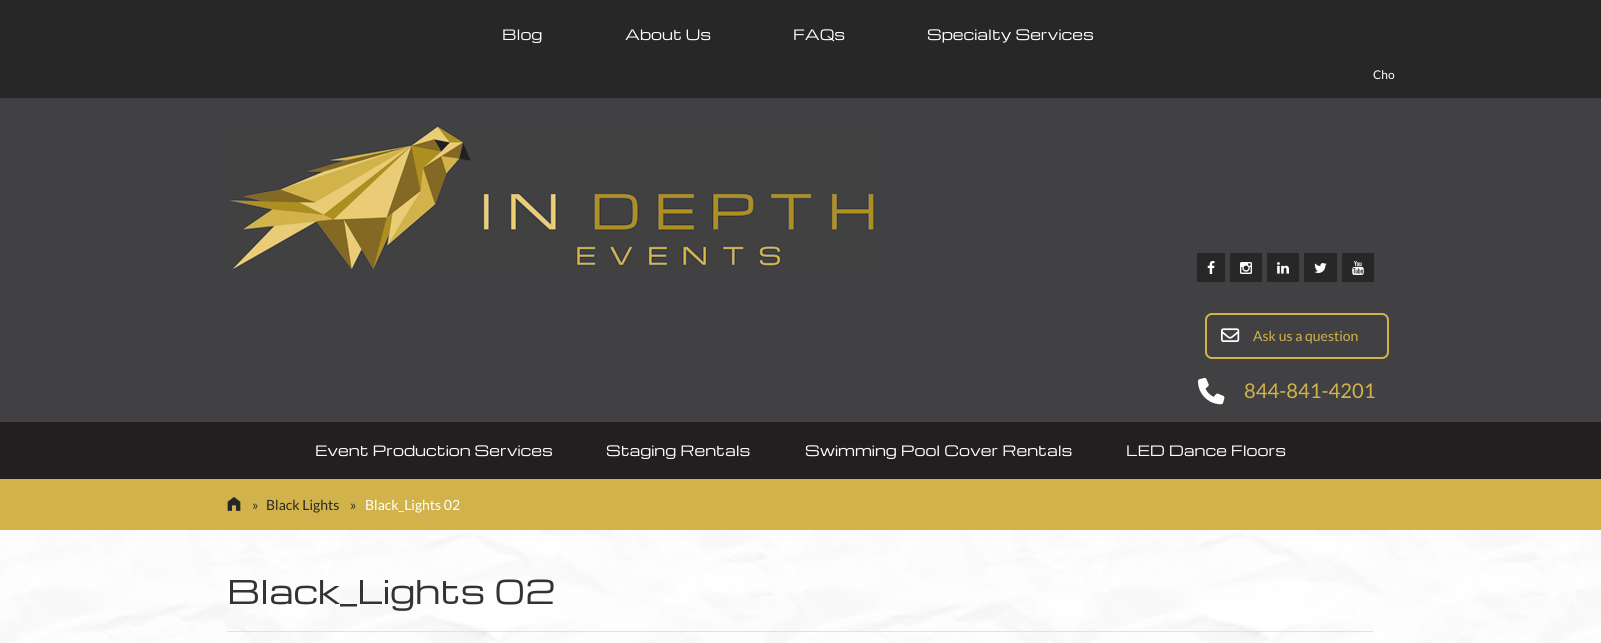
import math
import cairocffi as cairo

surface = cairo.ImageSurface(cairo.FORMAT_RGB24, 1601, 643)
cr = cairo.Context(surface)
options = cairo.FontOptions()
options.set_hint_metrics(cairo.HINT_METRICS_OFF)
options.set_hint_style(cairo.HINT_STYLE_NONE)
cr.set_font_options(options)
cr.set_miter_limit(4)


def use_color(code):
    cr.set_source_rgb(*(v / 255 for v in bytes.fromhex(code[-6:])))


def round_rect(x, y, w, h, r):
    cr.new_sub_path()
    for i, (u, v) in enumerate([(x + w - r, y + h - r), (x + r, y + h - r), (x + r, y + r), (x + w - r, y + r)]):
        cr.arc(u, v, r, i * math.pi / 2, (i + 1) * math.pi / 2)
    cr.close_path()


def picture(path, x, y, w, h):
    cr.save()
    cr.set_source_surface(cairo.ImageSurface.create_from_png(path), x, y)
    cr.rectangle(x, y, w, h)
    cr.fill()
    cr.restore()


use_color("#ffffff")
cr.paint()
picture("img1.png", 0, 530, 1601, 113)
use_color("#414042")
cr.rectangle(0, 98, 1601, 324)
cr.fill()
use_color("#272727")
cr.rectangle(0, 0, 1601, 98)
cr.fill()
cr.select_font_face("Michroma")
cr.set_font_size(14)
use_color("#ffffff")
cr.move_to(502, 40)
cr.show_text("Blog")
cr.move_to(625, 40)
cr.show_text("About Us")
cr.move_to(793, 40)
cr.show_text("FAQs")
cr.move_to(927, 40)
cr.show_text("Specialty Services")
cr.select_font_face("Lato")
cr.set_font_size(12)
cr.move_to(1373, 79)
cr.show_text("Cho")
picture("img2.png", 230, 125, 645, 145)
use_color("#272727")
cr.rectangle(1197, 253, 28, 29)
cr.fill()
picture("img3.png", 1207, 261, 8, 13)
cr.rectangle(1230, 253, 32, 29)
cr.fill()
picture("img4.png", 1240, 262, 12, 12)
cr.rectangle(1267, 253, 32, 29)
cr.fill()
picture("img5.png", 1277, 262, 12, 12)
cr.rectangle(1304, 253, 33, 29)
cr.fill()
picture("img6.png", 1314, 263, 13, 10)
cr.rectangle(1342, 253, 32, 29)
cr.fill()
picture("img7.png", 1352, 261, 12, 14)
round_rect(1206, 314, 182, 44, 6)
use_color("#d2b34b")
cr.stroke()
picture("img8.png", 1221, 328, 19, 14)
cr.set_font_size(14)
cr.move_to(1253, 341)
cr.show_text("Ask us a question")
picture("img9.png", 1198, 377, 27, 28)
cr.set_font_size(20.25)
cr.move_to(1244, 398)
cr.show_text("844-841-4201")
use_color("#231f20")
cr.rectangle(0, 422, 1601, 57)
cr.fill()
cr.select_font_face("Michroma")
cr.set_font_size(14)
use_color("#ffffff")
cr.move_to(315, 456)
cr.show_text("Event Production Services")
cr.move_to(606, 456)
cr.show_text("Staging Rentals")
cr.move_to(805, 456)
cr.show_text("Swimming Pool Cover Rentals")
cr.move_to(1126, 456)
cr.show_text("LED Dance Floors")
use_color("#d2b34b")
cr.rectangle(0, 479, 1601, 51)
cr.fill()
picture("img10.png", 227, 497, 14, 14)
cr.select_font_face("Lato")
use_color("#333333")
cr.move_to(252, 510)
cr.show_text("»")
use_color("#272727")
cr.move_to(266, 510)
cr.show_text("Black Lights")
use_color("#333333")
cr.move_to(350, 510)
cr.show_text("»")
use_color("#ffffff")
cr.move_to(365, 510)
cr.show_text("Black_Lights 02")
cr.select_font_face("Michroma")
cr.set_font_size(32)
use_color("#333333")
cr.move_to(227, 604)
cr.show_text("Black_Lights 02")
use_color("#d6e6ea")
cr.rectangle(227, 631, 1146, 1)
cr.fill()
surface.write_to_png("result.png")
